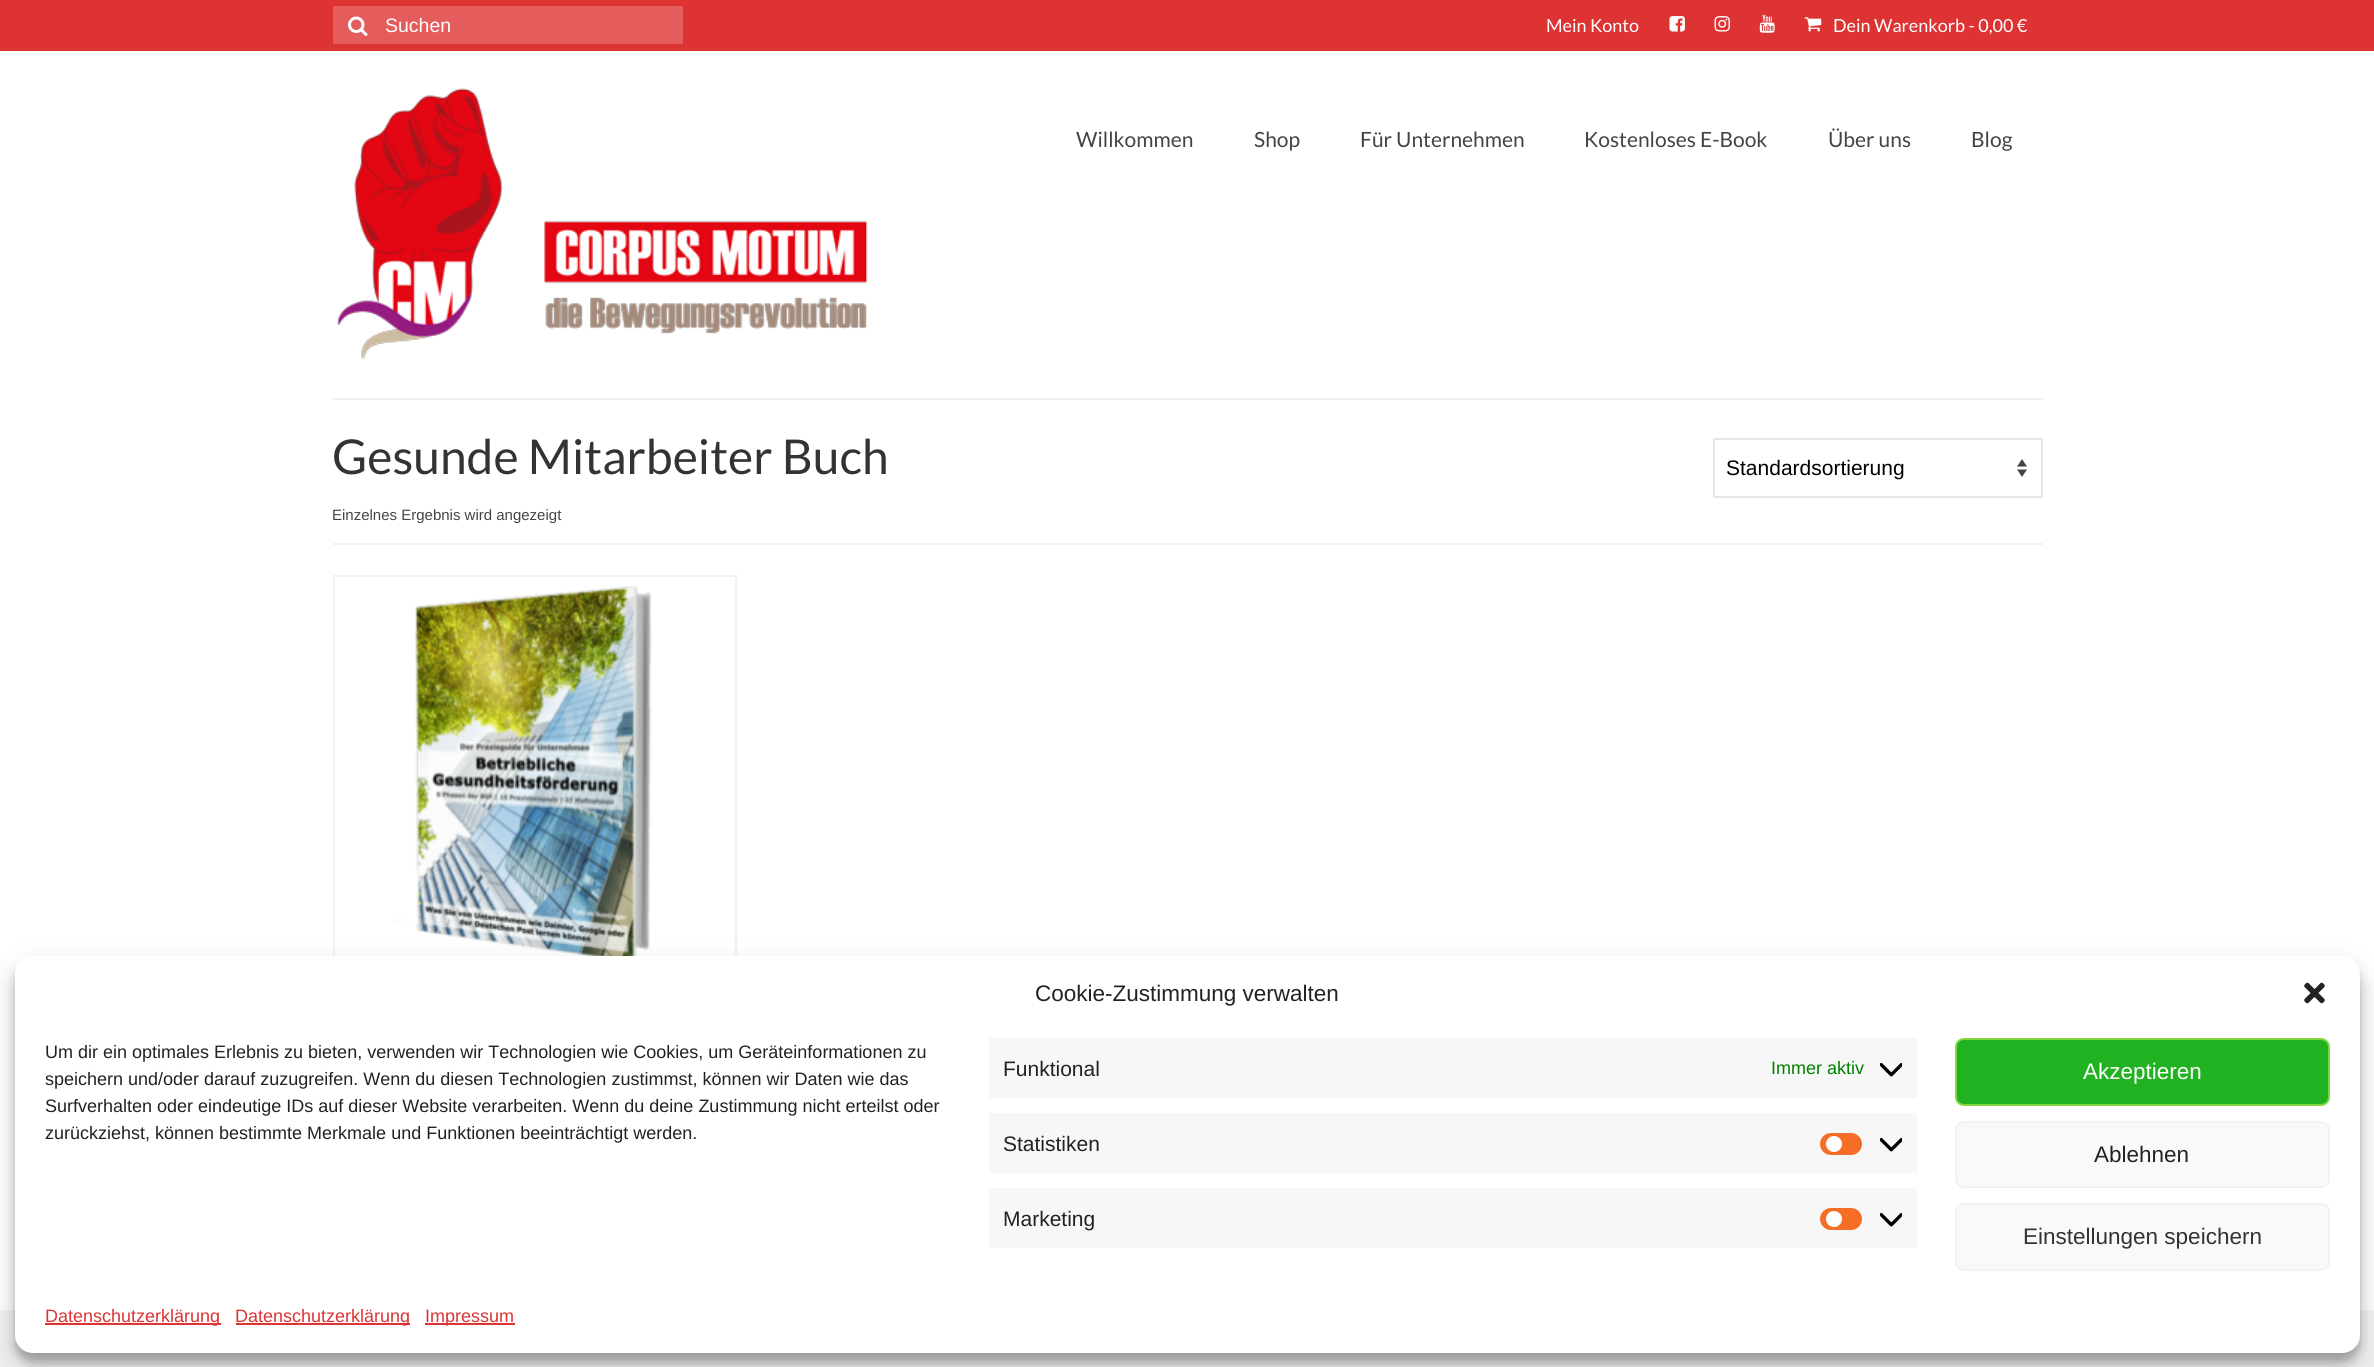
import math
import cairocffi as cairo

surface = cairo.ImageSurface(cairo.FORMAT_RGB24, 2374, 1367)
cr = cairo.Context(surface)
options = cairo.FontOptions()
options.set_hint_metrics(cairo.HINT_METRICS_OFF)
options.set_hint_style(cairo.HINT_STYLE_NONE)
cr.set_font_options(options)
cr.set_miter_limit(4)


def use_color(code):
    cr.set_source_rgb(*(v / 255 for v in bytes.fromhex(code[-6:])))


def round_rect(x, y, w, h, r):
    cr.new_sub_path()
    for i, (u, v) in enumerate([(x + w - r, y + h - r), (x + r, y + h - r), (x + r, y + r), (x + w - r, y + r)]):
        cr.arc(u, v, r, i * math.pi / 2, (i + 1) * math.pi / 2)
    cr.close_path()


def shadow(x, y, w, h, r, blur, alpha):
    cr.push_group_with_content(cairo.CONTENT_ALPHA)
    cr.set_operator(cairo.OPERATOR_SOURCE)
    for i in range(15, -16, -2):
        e = blur * i / 6
        if min(w, h) + 2 * e > 0:
            cr.set_source_rgba(0, 0, 0, alpha * math.erfc((i - 1) / 8.5) / 2)
            round_rect(x - e, y - e, w + 2 * e, h + 2 * e, max(0, min(r + e + blur * .6, min(w, h) / 2 + e)))
            cr.fill()
    cr.mask(cr.pop_group())


def picture(path, x, y, w, h):
    cr.save()
    cr.set_source_surface(cairo.ImageSurface.create_from_png(path), x, y)
    cr.rectangle(x, y, w, h)
    cr.fill()
    cr.restore()


use_color("#ffffff")
cr.paint()
use_color("#dd3333")
cr.rectangle(0, 0, 2374, 51)
cr.fill()
use_color("#e45c5c")
cr.rectangle(333, 6, 350, 38)
cr.fill()
picture("img1.png", 348, 16, 20, 20)
cr.select_font_face("Liberation Sans")
cr.set_font_size(19.5)
use_color("#ffffff")
cr.move_to(385, 32)
cr.show_text("Suchen")
cr.select_font_face("Lato")
cr.set_font_size(18)
cr.move_to(1546, 32)
cr.show_text("Mein Konto")
picture("img2.png", 1669, 16, 16, 16)
picture("img3.png", 1714, 16, 16, 16)
picture("img4.png", 1759, 14, 16, 19)
picture("img5.png", 1804, 17, 18, 15)
cr.move_to(1833, 32)
cr.show_text("Dein Warenkorb - 0,00 €")
picture("img6.png", 337, 88, 531, 271)
cr.set_font_size(21)
use_color("#444444")
cr.move_to(1076, 147)
cr.show_text("Willkommen")
cr.move_to(1254, 147)
cr.show_text("Shop")
cr.move_to(1360, 147)
cr.show_text("Für Unternehmen")
cr.move_to(1584, 147)
cr.show_text("Kostenloses E-Book")
cr.move_to(1828, 147)
cr.show_text("Über uns")
cr.move_to(1971, 147)
cr.show_text("Blog")
use_color("#f2f2f2")
cr.rectangle(333, 398, 1710, 2)
cr.fill()
cr.rectangle(333, 543, 1710, 2)
cr.fill()
cr.set_font_size(48)
use_color("#333333")
cr.move_to(332, 474)
cr.show_text("Gesunde Mitarbeiter Buch")
use_color("#444444")
cr.new_path()
cr.move_to(2017, 466.5)
cr.line_to(2022, 459)
cr.line_to(2027, 466.5)
cr.close_path()
cr.move_to(2027, 469.5)
cr.line_to(2022, 477)
cr.line_to(2017, 469.5)
cr.close_path()
cr.fill()
cr.rectangle(1714, 439, 328, 58)
use_color("#e6e6e6")
cr.stroke()
cr.select_font_face("Liberation Sans")
cr.set_font_size(21)
use_color("#000000")
cr.move_to(1726, 475)
cr.show_text("Standardsortierung")
cr.set_font_size(15)
use_color("#444444")
cr.move_to(332, 520)
cr.show_text("Einzelnes Ergebnis wird angezeigt")
cr.rectangle(334, 576, 402, 658)
use_color("#f2f2f2")
cr.stroke()
picture("img7.png", 393, 585, 259, 371)
cr.rectangle(0, 1310, 2374, 57)
cr.fill()
use_color("#000000")
shadow(15, 965, 2345, 397, 18, 4.5, 0.23)
shadow(15, 971, 2345, 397, 18, 15, 0.19)
use_color("#ffffff")
round_rect(15, 956, 2345, 397, 18)
cr.fill()
cr.set_font_size(22.5)
use_color("#222222")
cr.move_to(1035, 1001)
cr.show_text("Cookie-Zustimmung verwalten")
picture("img8.png", 2304, 982, 21, 22)
cr.set_font_size(18)
cr.move_to(45, 1058)
cr.show_text("Um dir ein optimales Erlebnis zu bieten, verwenden wir Technologien wie Cookies, um Geräteinformationen zu")
cr.move_to(45, 1085)
cr.show_text("speichern und/oder darauf zuzugreifen. Wenn du diesen Technologien zustimmst, können wir Daten wie das")
cr.move_to(45, 1112)
cr.show_text("Surfverhalten oder eindeutige IDs auf dieser Website verarbeiten. Wenn du deine Zustimmung nicht erteilst oder")
cr.move_to(45, 1139)
cr.show_text("zurückziehst, können bestimmte Merkmale und Funktionen beeinträchtigt werden.")
use_color("#f7f7f7")
cr.rectangle(989, 1038, 928, 60)
cr.fill()
cr.set_font_size(21)
use_color("#222222")
cr.move_to(1003, 1076)
cr.show_text("Funktional")
cr.set_font_size(18)
use_color("#008000")
cr.move_to(1771, 1074)
cr.show_text("Immer aktiv")
picture("img9.png", 1880, 1063, 22, 14)
use_color("#f7f7f7")
cr.rectangle(989, 1113, 928, 60)
cr.fill()
cr.set_font_size(21)
use_color("#222222")
cr.move_to(1003, 1151)
cr.show_text("Statistiken")
use_color("#f56e28")
round_rect(1820, 1133, 42, 22, 11)
cr.fill()
use_color("#ffffff")
cr.arc(1834, 1144, 8, 0, 2 * math.pi)
cr.fill()
picture("img9.png", 1880, 1138, 22, 14)
use_color("#f7f7f7")
cr.rectangle(989, 1188, 928, 60)
cr.fill()
use_color("#222222")
cr.move_to(1003, 1226)
cr.show_text("Marketing")
use_color("#f56e28")
round_rect(1820, 1208, 42, 22, 11)
cr.fill()
use_color("#ffffff")
cr.arc(1834, 1219, 8, 0, 2 * math.pi)
cr.fill()
picture("img9.png", 1880, 1213, 22, 14)
use_color("#21b221")
round_rect(1956, 1039, 373, 66, 8)
cr.fill_preserve()
use_color("#81d742")
cr.stroke()
cr.set_font_size(22.5)
use_color("#ffffff")
cr.move_to(2083, 1079)
cr.show_text("Akzeptieren")
use_color("#f9f9f9")
round_rect(1956, 1122, 373, 65, 8)
cr.fill_preserve()
use_color("#f2f2f2")
cr.stroke()
use_color("#222222")
cr.move_to(2094, 1162)
cr.show_text("Ablehnen")
use_color("#f9f9f9")
round_rect(1956, 1204, 373, 66, 8)
cr.fill_preserve()
use_color("#f2f2f2")
cr.stroke()
use_color("#333333")
cr.move_to(2023, 1244)
cr.show_text("Einstellungen speichern")
use_color("#dd3333")
cr.rectangle(45, 1323, 176, 2)
cr.fill()
cr.set_font_size(18)
cr.move_to(45, 1322)
cr.show_text("Datenschutzerklärung")
cr.rectangle(236, 1323, 174, 2)
cr.fill()
cr.move_to(235, 1322)
cr.show_text("Datenschutzerklärung")
cr.rectangle(425, 1323, 90, 2)
cr.fill()
cr.move_to(425, 1322)
cr.show_text("Impressum")
surface.write_to_png("result.png")
